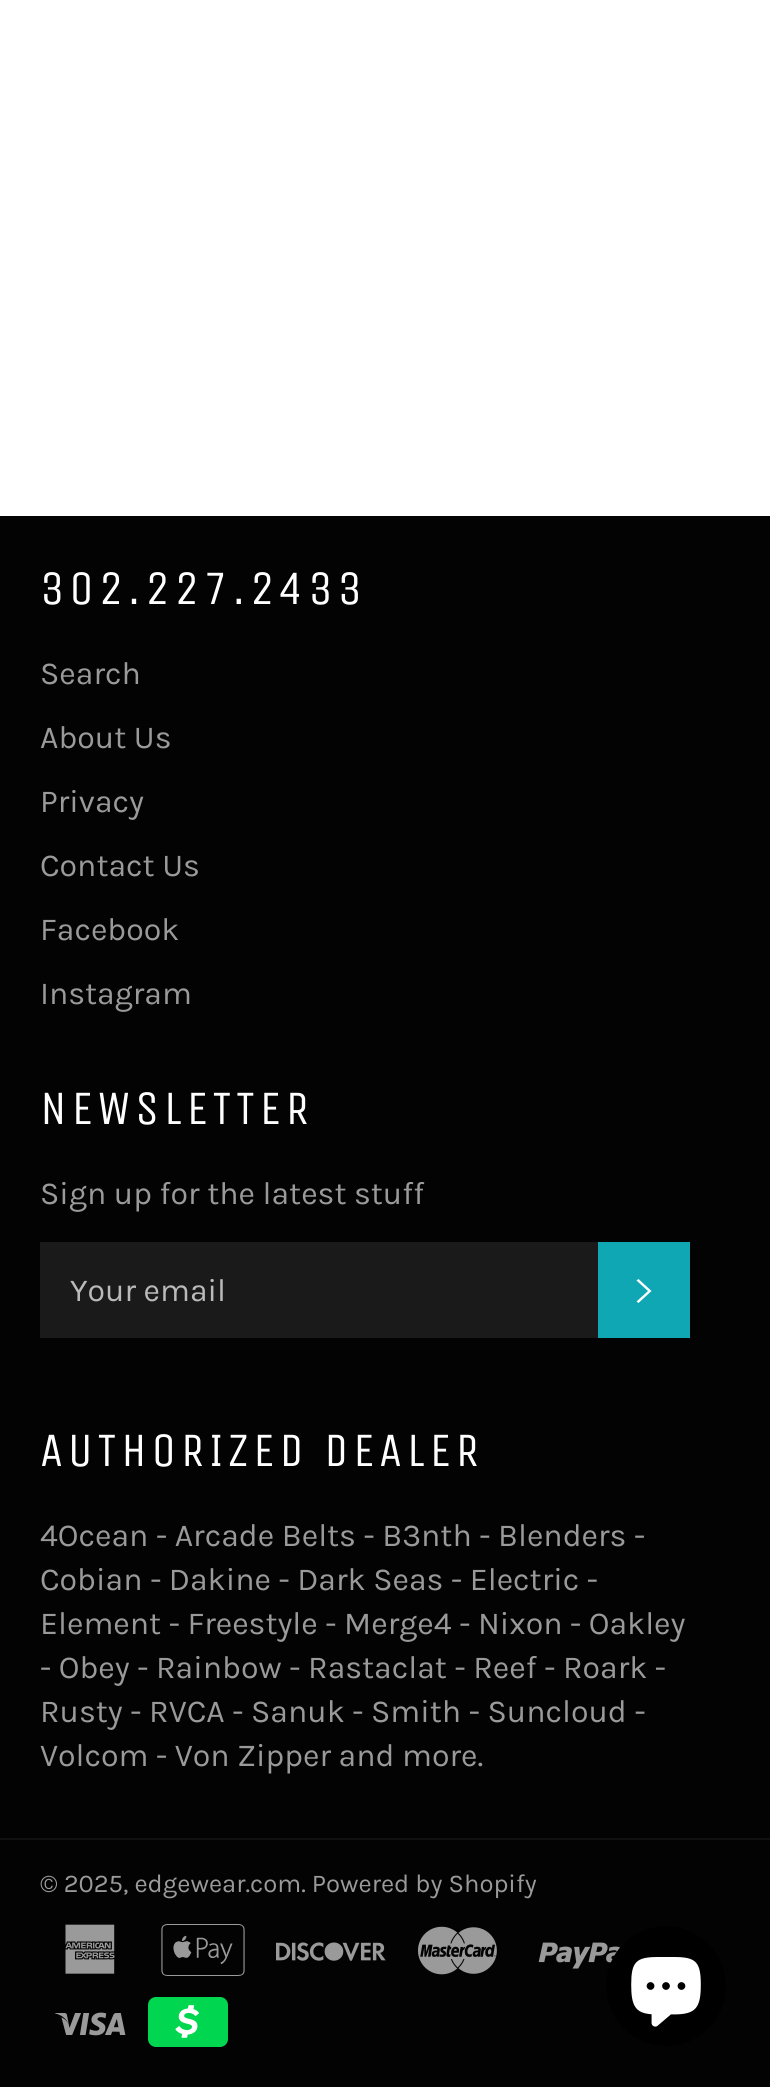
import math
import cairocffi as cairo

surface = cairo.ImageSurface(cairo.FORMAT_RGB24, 770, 2087)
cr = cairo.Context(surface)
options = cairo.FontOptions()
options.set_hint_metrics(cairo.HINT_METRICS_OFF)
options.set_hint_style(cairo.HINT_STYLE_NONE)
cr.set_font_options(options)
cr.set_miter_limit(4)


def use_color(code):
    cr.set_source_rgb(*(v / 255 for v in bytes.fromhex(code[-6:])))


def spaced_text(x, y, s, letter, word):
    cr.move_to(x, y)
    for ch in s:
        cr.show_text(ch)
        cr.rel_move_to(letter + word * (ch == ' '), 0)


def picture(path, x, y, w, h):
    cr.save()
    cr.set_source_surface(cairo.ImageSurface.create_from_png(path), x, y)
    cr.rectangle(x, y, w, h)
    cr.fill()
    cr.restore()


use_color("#ffffff")
cr.paint()
use_color("#030303")
cr.rectangle(0, 516, 770, 1571)
cr.fill()
cr.select_font_face("Unica One")
cr.set_font_size(48)
use_color("#ffffff")
spaced_text(40, 604, "302.227.2433", 4.75, 0)
cr.select_font_face("Karla")
cr.set_font_size(32)
use_color("#9a9a9a")
cr.move_to(40, 684)
cr.show_text("Search")
cr.move_to(40, 748)
cr.show_text("About Us")
cr.move_to(40, 812)
cr.show_text("Privacy")
cr.move_to(40, 876)
cr.show_text("Contact Us")
cr.move_to(40, 940)
cr.show_text("Facebook")
cr.move_to(40, 1004)
cr.show_text("Instagram")
cr.select_font_face("Unica One")
cr.set_font_size(48)
use_color("#ffffff")
spaced_text(40, 1124, "NEWSLETTER", 4.75, 0)
cr.select_font_face("Karla")
cr.set_font_size(32)
use_color("#9a9a9a")
cr.move_to(40, 1204)
cr.show_text("Sign up for the latest stuff")
use_color("#1a1a1a")
cr.rectangle(40, 1242, 558, 96)
cr.fill()
use_color("#bababa")
cr.move_to(70, 1301)
cr.show_text("Your email")
use_color("#10a7b4")
cr.rectangle(598, 1242, 92, 96)
cr.fill()
use_color("#ffffff")
cr.new_path()
cr.move_to(636.5, 1280.5)
cr.line_to(638.5, 1279)
cr.line_to(651.5, 1291)
cr.line_to(638.5, 1303)
cr.line_to(636.5, 1301.5)
cr.line_to(648, 1291)
cr.close_path()
cr.fill()
cr.select_font_face("Unica One")
cr.set_font_size(48)
spaced_text(40, 1466, "AUTHORIZED DEALER", 4.75, 0)
cr.select_font_face("Karla")
cr.set_font_size(32)
use_color("#9a9a9a")
cr.move_to(40, 1546)
cr.show_text("4Ocean - Arcade Belts - B3nth - Blenders -")
cr.move_to(40, 1590)
cr.show_text("Cobian - Dakine - Dark Seas - Electric -")
cr.move_to(40, 1634)
cr.show_text("Element - Freestyle - Merge4 - Nixon - Oakley")
cr.move_to(40, 1678)
cr.show_text("- Obey - Rainbow - Rastaclat - Reef - Roark -")
cr.move_to(40, 1722)
cr.show_text("Rusty - RVCA - Sanuk - Smith - Suncloud -")
cr.move_to(40, 1766)
cr.show_text("Volcom - Von Zipper and more.")
use_color("#101010")
cr.rectangle(0, 1838, 770, 2)
cr.fill()
cr.set_font_size(25.6)
use_color("#9a9a9a")
cr.move_to(40, 1892)
cr.show_text("© 2025, edgewear.com. Powered by Shopify")
picture("img1.png", 65, 1924, 50, 50)
picture("img2.png", 161, 1924, 84, 52)
picture("img3.png", 276, 1942, 110, 19)
picture("img4.png", 418, 1926, 79, 49)
picture("img5.png", 538, 1942, 83, 27)
picture("img6.png", 55, 2012, 71, 24)
picture("img7.png", 148, 1997, 80, 50)
use_color("#000000")
cr.arc(666, 1986, 60, 0, 2 * math.pi)
cr.fill()
picture("img8.png", 631, 1957, 70, 70)
surface.write_to_png("result.png")
